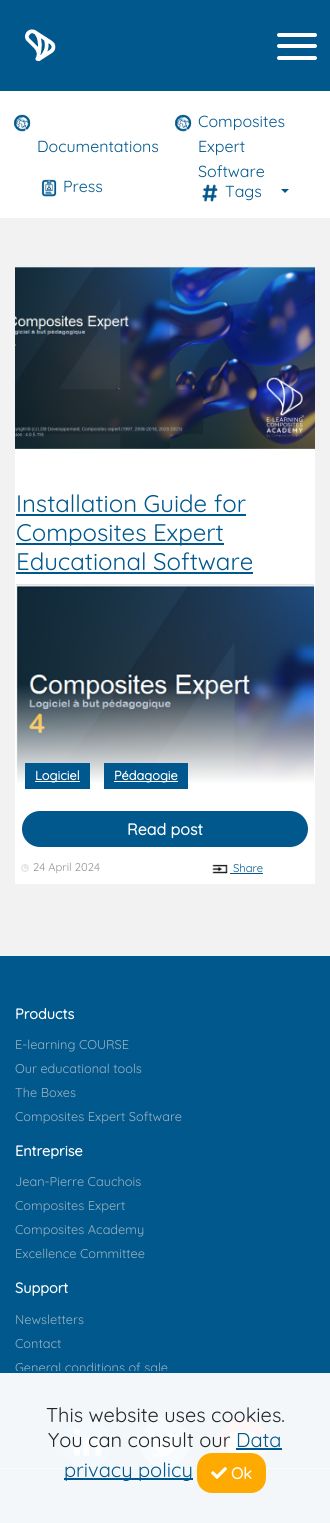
import math
import cairocffi as cairo

surface = cairo.ImageSurface(cairo.FORMAT_RGB24, 330, 1523)
cr = cairo.Context(surface)
options = cairo.FontOptions()
options.set_hint_metrics(cairo.HINT_METRICS_OFF)
options.set_hint_style(cairo.HINT_STYLE_NONE)
cr.set_font_options(options)
cr.set_miter_limit(4)


def use_color(code):
    cr.set_source_rgb(*(v / 255 for v in bytes.fromhex(code[-6:])))


def round_rect(x, y, w, h, r):
    cr.new_sub_path()
    for i, (u, v) in enumerate([(x + w - r, y + h - r), (x + r, y + h - r), (x + r, y + r), (x + w - r, y + r)]):
        cr.arc(u, v, r, i * math.pi / 2, (i + 1) * math.pi / 2)
    cr.close_path()


def picture(path, x, y, w, h):
    cr.save()
    cr.set_source_surface(cairo.ImageSurface.create_from_png(path), x, y)
    cr.rectangle(x, y, w, h)
    cr.fill()
    cr.restore()


use_color("#00588d")
cr.paint()
picture("img1.png", 25, 29, 31, 33)
use_color("#ffffff")
round_rect(277, 44, 40, 4, 2)
cr.fill()
round_rect(277, 33, 40, 4, 2)
cr.fill()
round_rect(277, 56, 40, 4, 2)
cr.fill()
use_color("#f2f2f2")
cr.rectangle(0, 218, 330, 738)
cr.fill()
use_color("#ffffff")
cr.rectangle(0, 91, 330, 127)
cr.fill()
picture("img2.png", 14, 114, 17, 18)
cr.select_font_face("Quicksand Light")
cr.set_font_size(16)
use_color("#00588d")
cr.move_to(37, 152)
cr.show_text("Documentations")
picture("img3.png", 175, 114, 17, 18)
cr.move_to(198, 127)
cr.show_text("Composites")
cr.move_to(198, 152)
cr.show_text("Expert")
cr.move_to(198, 177)
cr.show_text("Software")
picture("img4.png", 41, 179, 16, 18)
cr.move_to(63, 192)
cr.show_text("Press")
picture("img5.png", 202, 184, 16, 18)
cr.move_to(225, 197)
cr.show_text("Tags")
cr.new_path()
cr.move_to(281, 189)
cr.line_to(289, 189)
cr.line_to(285, 193)
cr.close_path()
cr.fill()
picture("img6.png", 15, 266, 300, 183)
use_color("#ffffff")
cr.rectangle(15, 449, 300, 435)
cr.fill()
cr.set_font_size(24)
use_color("#00588d")
cr.move_to(16, 512)
cr.show_text("Installation Guide for")
cr.rectangle(16, 514, 230, 2)
cr.fill()
cr.rectangle(16, 543, 208, 2)
cr.fill()
cr.move_to(16, 541)
cr.show_text("Composites Expert")
cr.move_to(16, 570)
cr.show_text("Educational Software")
cr.rectangle(16, 572, 237, 2)
cr.fill()
picture("img7.png", 16, 584, 298, 200)
round_rect(21, 810, 288, 38, 19)
cr.fill_preserve()
use_color("#ffffff")
cr.stroke()
cr.select_font_face("Quicksand", cairo.FONT_SLANT_NORMAL, cairo.FONT_WEIGHT_BOLD)
cr.set_font_size(16)
cr.move_to(127, 835)
cr.show_text("Read post")
picture("img8.png", 21, 864, 8, 8)
cr.select_font_face("Quicksand Light")
cr.set_font_size(11.25)
use_color("#919191")
cr.move_to(33, 871)
cr.show_text("24 April 2024")
picture("img9.png", 212, 864, 16, 10)
use_color("#00588d")
cr.move_to(233, 872)
cr.show_text("Share")
cr.rectangle(230, 873, 33, 1)
cr.fill()
use_color("#00588e")
cr.rectangle(25, 763, 65, 26)
cr.fill()
use_color("#ffffff")
cr.rectangle(35, 781, 45, 1)
cr.fill()
cr.select_font_face("Quicksand", cairo.FONT_SLANT_NORMAL, cairo.FONT_WEIGHT_BOLD)
cr.set_font_size(12.75)
cr.move_to(35, 780)
cr.show_text("Logiciel")
use_color("#00588e")
cr.rectangle(104, 763, 84, 26)
cr.fill()
use_color("#ffffff")
cr.rectangle(114, 781, 64, 1)
cr.fill()
cr.move_to(114, 780)
cr.show_text("Pédagogie")
use_color("#9db3c1")
cr.rectangle(0, 1468, 330, 1)
cr.fill()
cr.set_font_size(14.5)
use_color("#ffffff")
cr.move_to(15, 1019)
cr.show_text("Products")
cr.select_font_face("Quicksand Light")
cr.set_font_size(12.75)
use_color("#9db3c1")
cr.move_to(15, 1049)
cr.show_text("E-learning COURSE")
cr.move_to(15, 1073)
cr.show_text("Our educational tools")
cr.move_to(15, 1097)
cr.show_text("The Boxes")
cr.move_to(15, 1121)
cr.show_text("Composites Expert Software")
cr.select_font_face("Quicksand", cairo.FONT_SLANT_NORMAL, cairo.FONT_WEIGHT_BOLD)
cr.set_font_size(14.5)
use_color("#ffffff")
cr.move_to(15, 1156)
cr.show_text("Entreprise")
cr.select_font_face("Quicksand Light")
cr.set_font_size(12.75)
use_color("#9db3c1")
cr.move_to(15, 1186)
cr.show_text("Jean-Pierre Cauchois")
cr.move_to(15, 1210)
cr.show_text("Composites Expert")
cr.move_to(15, 1234)
cr.show_text("Composites Academy")
cr.move_to(15, 1258)
cr.show_text("Excellence Committee")
cr.select_font_face("Quicksand", cairo.FONT_SLANT_NORMAL, cairo.FONT_WEIGHT_BOLD)
cr.set_font_size(14.5)
use_color("#ffffff")
cr.move_to(15, 1293)
cr.show_text("Support")
cr.select_font_face("Quicksand Light")
cr.set_font_size(12.75)
use_color("#9db3c1")
cr.move_to(15, 1324)
cr.show_text("Newsletters")
cr.move_to(15, 1348)
cr.show_text("Contact")
cr.move_to(15, 1372)
cr.show_text("General conditions of sale")
picture("img10.png", 62, 1418, 50, 50)
picture("img11.png", 140, 1418, 50, 50)
picture("img12.png", 218, 1418, 50, 41)
cr.set_source_rgba(1, 1, 1, 0.95)
cr.rectangle(0, 1373, 330, 150)
cr.fill()
use_color("#00588e")
cr.rectangle(17, 1371, 151, 2)
cr.fill()
cr.set_font_size(20)
use_color("#212529")
cr.move_to(46, 1422)
cr.show_text("This website uses cookies.")
cr.move_to(48, 1447)
cr.show_text("You can consult our")
use_color("#00588d")
cr.move_to(236, 1447)
cr.show_text("Data")
use_color("#00588e")
cr.rectangle(236, 1448, 46, 2)
cr.fill()
cr.rectangle(64, 1478, 129, 2)
cr.fill()
use_color("#00588d")
cr.move_to(64, 1477)
cr.show_text("privacy policy")
use_color("#feaa00")
round_rect(198, 1454, 67, 38, 14)
cr.fill_preserve()
cr.stroke()
picture("img13.png", 211, 1467, 16, 12)
cr.select_font_face("Quicksand", cairo.FONT_SLANT_NORMAL, cairo.FONT_WEIGHT_BOLD)
cr.set_font_size(16)
use_color("#ffffff")
cr.move_to(231, 1479)
cr.show_text("Ok")
surface.write_to_png("result.png")
